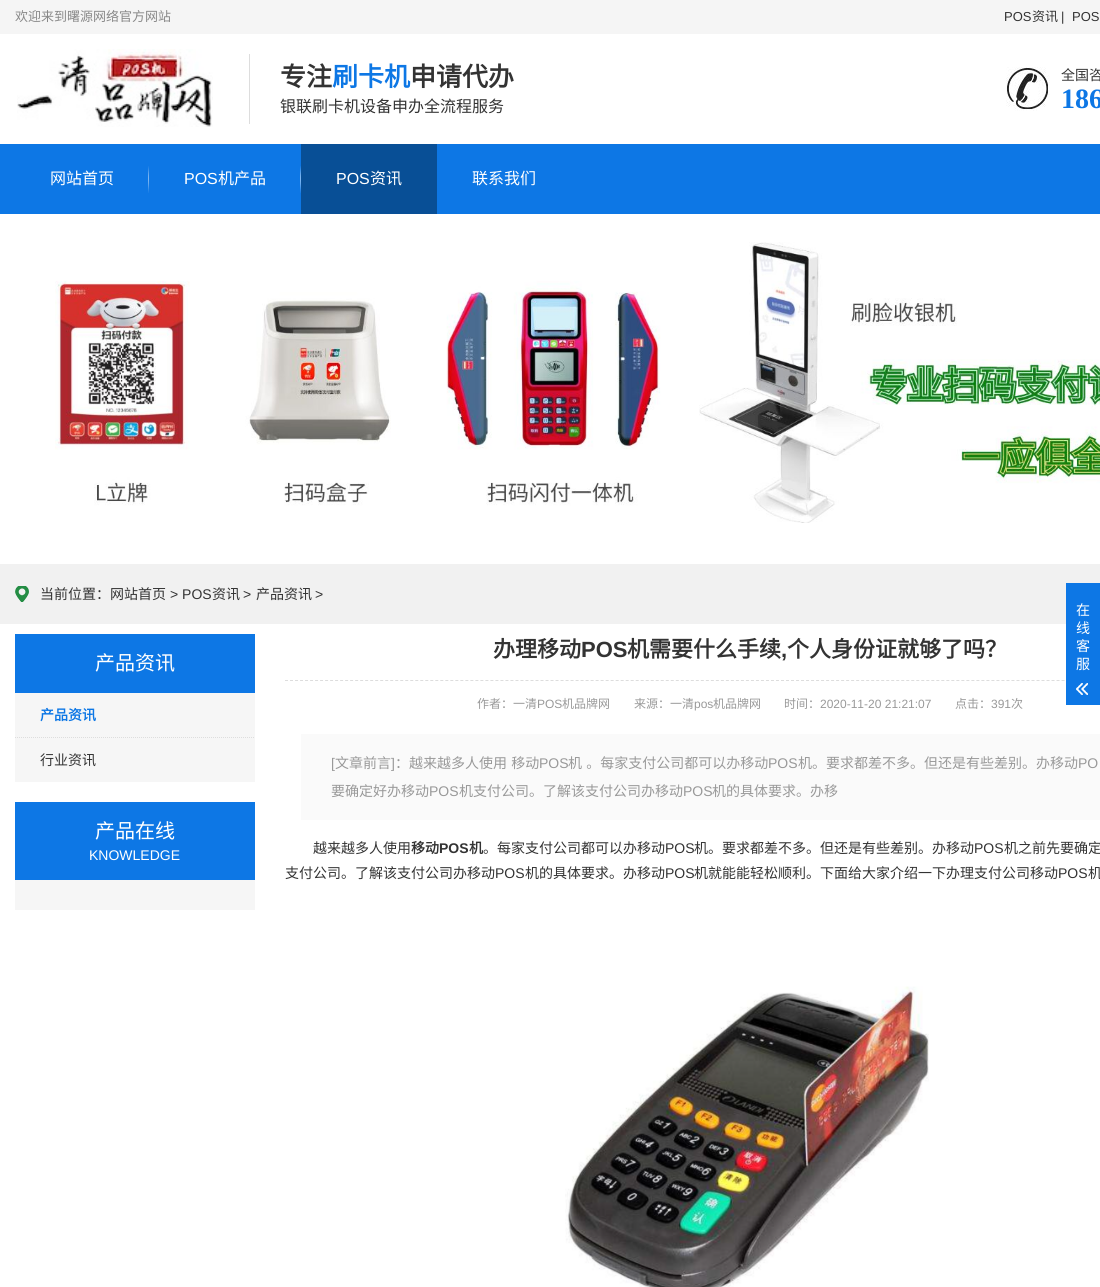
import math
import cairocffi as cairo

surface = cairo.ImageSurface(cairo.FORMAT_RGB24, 1100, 1287)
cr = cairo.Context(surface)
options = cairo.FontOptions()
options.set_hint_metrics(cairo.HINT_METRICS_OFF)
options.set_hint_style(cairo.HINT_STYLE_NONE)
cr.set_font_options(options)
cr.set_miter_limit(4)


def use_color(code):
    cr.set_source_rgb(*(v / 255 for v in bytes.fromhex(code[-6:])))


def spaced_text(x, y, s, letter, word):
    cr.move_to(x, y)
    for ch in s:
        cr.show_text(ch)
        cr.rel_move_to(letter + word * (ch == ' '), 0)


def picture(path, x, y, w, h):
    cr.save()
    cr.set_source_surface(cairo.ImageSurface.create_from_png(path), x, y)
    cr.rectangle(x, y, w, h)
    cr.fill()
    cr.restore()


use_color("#ffffff")
cr.paint()
use_color("#f5f5f5")
cr.rectangle(0, 0, 1100, 34)
cr.fill()
cr.select_font_face("Noto Sans CJK SC")
cr.set_font_size(13)
use_color("#888888")
cr.move_to(15, 21)
cr.show_text("欢迎来到曙源网络官方网站")
cr.select_font_face("Liberation Sans")
use_color("#333333")
cr.move_to(1004, 21)
cr.show_text("POS")
cr.select_font_face("Noto Sans CJK SC")
cr.move_to(1032, 21)
cr.show_text("资讯")
cr.select_font_face("Liberation Sans")
cr.move_to(1061, 21)
cr.show_text("|")
cr.move_to(1072, 21)
cr.show_text("POS")
picture("img1.png", 17, 49, 196, 78)
use_color("#dddddd")
cr.rectangle(249, 54, 1, 70)
cr.fill()
cr.select_font_face("Noto Sans CJK SC", cairo.FONT_SLANT_NORMAL, cairo.FONT_WEIGHT_BOLD)
cr.set_font_size(26)
use_color("#333333")
cr.move_to(280, 86)
cr.show_text("专注")
use_color("#0d77e5")
cr.move_to(332, 86)
cr.show_text("刷卡机")
use_color("#333333")
cr.move_to(410, 86)
cr.show_text("申请代办")
cr.select_font_face("Noto Sans CJK SC")
cr.set_font_size(16)
cr.move_to(280, 112)
cr.show_text("银联刷卡机设备申办全流程服务")
picture("img2.png", 1006, 67, 44, 44)
cr.set_font_size(14)
cr.move_to(1061, 80)
cr.show_text("全国咨")
cr.select_font_face("Liberation Serif", cairo.FONT_SLANT_NORMAL, cairo.FONT_WEIGHT_BOLD)
cr.set_font_size(28)
use_color("#0d77e5")
cr.move_to(1061, 108)
cr.show_text("186")
cr.rectangle(0, 144, 1100, 70)
cr.fill()
picture("img3.png", 148, 166, 1, 27)
cr.select_font_face("Noto Sans CJK SC")
cr.set_font_size(16)
use_color("#ffffff")
cr.move_to(50, 184)
cr.show_text("网站首页")
picture("img3.png", 300, 166, 1, 27)
cr.select_font_face("Liberation Sans")
cr.move_to(184, 184)
cr.show_text("POS")
cr.select_font_face("Noto Sans CJK SC")
cr.move_to(218, 184)
cr.show_text("机产品")
use_color("#084f96")
cr.rectangle(301, 144, 136, 70)
cr.fill()
cr.select_font_face("Liberation Sans")
use_color("#ffffff")
cr.move_to(336, 184)
cr.show_text("POS")
cr.select_font_face("Noto Sans CJK SC")
cr.move_to(370, 184)
cr.show_text("资讯")
cr.move_to(472, 184)
cr.show_text("联系我们")
picture("img4.png", 55, 242, 1045, 281)
use_color("#f1f1f1")
cr.rectangle(0, 564, 1100, 60)
cr.fill()
picture("img5.png", 15, 586, 14, 16)
cr.set_font_size(14)
use_color("#333333")
cr.move_to(40, 599)
cr.show_text("当前位置：网站首页")
cr.select_font_face("Liberation Sans")
cr.move_to(170, 599)
cr.show_text("> POS")
cr.select_font_face("Noto Sans CJK SC")
cr.move_to(212, 599)
cr.show_text("资讯")
cr.select_font_face("Liberation Sans")
cr.move_to(243, 599)
cr.show_text(">")
cr.select_font_face("Noto Sans CJK SC")
cr.move_to(256, 599)
cr.show_text("产品资讯")
cr.select_font_face("Liberation Sans")
cr.move_to(315, 599)
cr.show_text(">")
cr.new_path()
cr.move_to(285, 680.5)
cr.line_to(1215, 680.5)
use_color("#dddddd")
cr.set_line_width(1)
cr.set_dash([3, 2.01])
cr.stroke()
use_color("#0d77e5")
cr.rectangle(1066, 583, 34, 122)
cr.fill()
cr.select_font_face("Noto Sans CJK SC")
use_color("#ffffff")
cr.move_to(1076, 615)
cr.show_text("在")
cr.move_to(1076, 633)
cr.show_text("线")
cr.move_to(1076, 651)
cr.show_text("客")
cr.move_to(1076, 669)
cr.show_text("服")
picture("img6.png", 1076, 683, 12, 12)
use_color("#f6f6f6")
cr.rectangle(15, 693, 240, 89)
cr.fill()
use_color("#0d77e5")
cr.rectangle(15, 634, 240, 59)
cr.fill()
cr.set_font_size(20)
use_color("#ffffff")
cr.move_to(95, 670)
cr.show_text("产品资讯")
cr.new_path()
cr.move_to(15, 737.5)
cr.line_to(255, 737.5)
use_color("#dddddd")
cr.set_dash([1, 1])
cr.stroke()
cr.select_font_face("Noto Sans CJK SC", cairo.FONT_SLANT_NORMAL, cairo.FONT_WEIGHT_BOLD)
cr.set_font_size(14)
use_color("#0d77e5")
cr.move_to(40, 720)
cr.show_text("产品资讯")
cr.select_font_face("Noto Sans CJK SC")
use_color("#333333")
cr.move_to(40, 765)
cr.show_text("行业资讯")
use_color("#f6f6f6")
cr.rectangle(15, 880, 240, 30)
cr.fill()
use_color("#0d77e5")
cr.rectangle(15, 802, 240, 78)
cr.fill()
cr.set_font_size(20)
use_color("#ffffff")
cr.move_to(95, 838)
cr.show_text("产品在线")
cr.select_font_face("Liberation Sans")
cr.set_font_size(14)
cr.move_to(89, 860)
cr.show_text("KNOWLEDGE")
cr.select_font_face("Noto Sans CJK SC", cairo.FONT_SLANT_NORMAL, cairo.FONT_WEIGHT_BOLD)
cr.set_font_size(22)
use_color("#333333")
cr.move_to(493, 657)
cr.show_text("办理移动")
cr.select_font_face("Liberation Sans", cairo.FONT_SLANT_NORMAL, cairo.FONT_WEIGHT_BOLD)
cr.move_to(581, 657)
cr.show_text("POS")
cr.select_font_face("Noto Sans CJK SC", cairo.FONT_SLANT_NORMAL, cairo.FONT_WEIGHT_BOLD)
cr.move_to(627, 657)
cr.show_text("机需要什么手续")
cr.select_font_face("Liberation Sans", cairo.FONT_SLANT_NORMAL, cairo.FONT_WEIGHT_BOLD)
cr.move_to(781, 657)
cr.show_text(",")
cr.select_font_face("Noto Sans CJK SC", cairo.FONT_SLANT_NORMAL, cairo.FONT_WEIGHT_BOLD)
cr.move_to(787, 657)
cr.show_text("个人身份证就够了吗？")
cr.select_font_face("Noto Sans CJK SC")
cr.set_font_size(12)
use_color("#999999")
cr.move_to(477, 708)
cr.show_text("作者：一清")
cr.select_font_face("Liberation Sans")
cr.move_to(537, 708)
cr.show_text("POS")
cr.select_font_face("Noto Sans CJK SC")
cr.move_to(562, 708)
cr.show_text("机品牌网")
cr.move_to(634, 708)
cr.show_text("来源：一清")
cr.select_font_face("Liberation Sans")
cr.move_to(694, 708)
cr.show_text("pos")
cr.select_font_face("Noto Sans CJK SC")
cr.move_to(713, 708)
cr.show_text("机品牌网")
cr.move_to(784, 708)
cr.show_text("时间：")
cr.select_font_face("Liberation Sans")
cr.move_to(820, 708)
cr.show_text("2020-11-20 21:21:07")
cr.select_font_face("Noto Sans CJK SC")
cr.move_to(955, 708)
cr.show_text("点击：")
cr.select_font_face("Liberation Sans")
cr.move_to(991, 708)
cr.show_text("391")
cr.select_font_face("Noto Sans CJK SC")
cr.move_to(1011, 708)
cr.show_text("次")
use_color("#fafafa")
cr.rectangle(301, 734, 799, 86)
cr.fill()
cr.select_font_face("Liberation Sans")
cr.set_font_size(14)
use_color("#999999")
cr.move_to(331, 768)
cr.show_text("[")
cr.select_font_face("Noto Sans CJK SC")
cr.move_to(335, 768)
cr.show_text("文章前言")
cr.select_font_face("Liberation Sans")
cr.move_to(391, 768)
cr.show_text("]")
cr.select_font_face("Noto Sans CJK SC")
spaced_text(395, 768, "：越来越多人使用 移动", 0, 1)
cr.select_font_face("Liberation Sans")
cr.move_to(539, 768)
cr.show_text("POS")
cr.select_font_face("Noto Sans CJK SC")
spaced_text(568, 768, "机 。每家支付公司都可以办移动", 0, 1)
cr.select_font_face("Liberation Sans")
cr.move_to(768, 768)
cr.show_text("POS")
cr.select_font_face("Noto Sans CJK SC")
cr.move_to(798, 768)
cr.show_text("机。要求都差不多。但还是有些差别。办移动")
cr.select_font_face("Liberation Sans")
cr.move_to(1078, 768)
cr.show_text("PO")
cr.select_font_face("Noto Sans CJK SC")
cr.move_to(331, 796)
cr.show_text("要确定好办移动")
cr.select_font_face("Liberation Sans")
cr.move_to(429, 796)
cr.show_text("POS")
cr.select_font_face("Noto Sans CJK SC")
cr.move_to(459, 796)
cr.show_text("机支付公司。了解该支付公司办移动")
cr.select_font_face("Liberation Sans")
cr.move_to(683, 796)
cr.show_text("POS")
cr.select_font_face("Noto Sans CJK SC")
cr.move_to(712, 796)
cr.show_text("机的具体要求。办移")
use_color("#333333")
cr.move_to(313, 853)
cr.show_text("越来越多人使用")
cr.select_font_face("Noto Sans CJK SC", cairo.FONT_SLANT_NORMAL, cairo.FONT_WEIGHT_BOLD)
cr.move_to(411, 853)
cr.show_text("移动")
cr.select_font_face("Liberation Sans", cairo.FONT_SLANT_NORMAL, cairo.FONT_WEIGHT_BOLD)
cr.move_to(439, 853)
cr.show_text("POS")
cr.select_font_face("Noto Sans CJK SC", cairo.FONT_SLANT_NORMAL, cairo.FONT_WEIGHT_BOLD)
cr.move_to(469, 853)
cr.show_text("机")
cr.select_font_face("Noto Sans CJK SC")
cr.move_to(483, 853)
cr.show_text("。每家支付公司都可以办移动")
cr.select_font_face("Liberation Sans")
cr.move_to(665, 853)
cr.show_text("POS")
cr.select_font_face("Noto Sans CJK SC")
cr.move_to(694, 853)
cr.show_text("机。要求都差不多。但还是有些差别。办移动")
cr.select_font_face("Liberation Sans")
cr.move_to(974, 853)
cr.show_text("POS")
cr.select_font_face("Noto Sans CJK SC")
cr.move_to(1004, 853)
cr.show_text("机之前先要确定")
cr.move_to(285, 878)
cr.show_text("支付公司。了解该支付公司办移动")
cr.select_font_face("Liberation Sans")
cr.move_to(495, 878)
cr.show_text("POS")
cr.select_font_face("Noto Sans CJK SC")
cr.move_to(525, 878)
cr.show_text("机的具体要求。办移动")
cr.select_font_face("Liberation Sans")
cr.move_to(665, 878)
cr.show_text("POS")
cr.select_font_face("Noto Sans CJK SC")
cr.move_to(694, 878)
cr.show_text("机就能能轻松顺利。下面给大家介绍一下办理支付公司移动")
cr.select_font_face("Liberation Sans")
cr.move_to(1058, 878)
cr.show_text("POS")
cr.select_font_face("Noto Sans CJK SC")
cr.move_to(1088, 878)
cr.show_text("机")
picture("img7.png", 565, 986, 364, 301)
surface.write_to_png("result.png")
